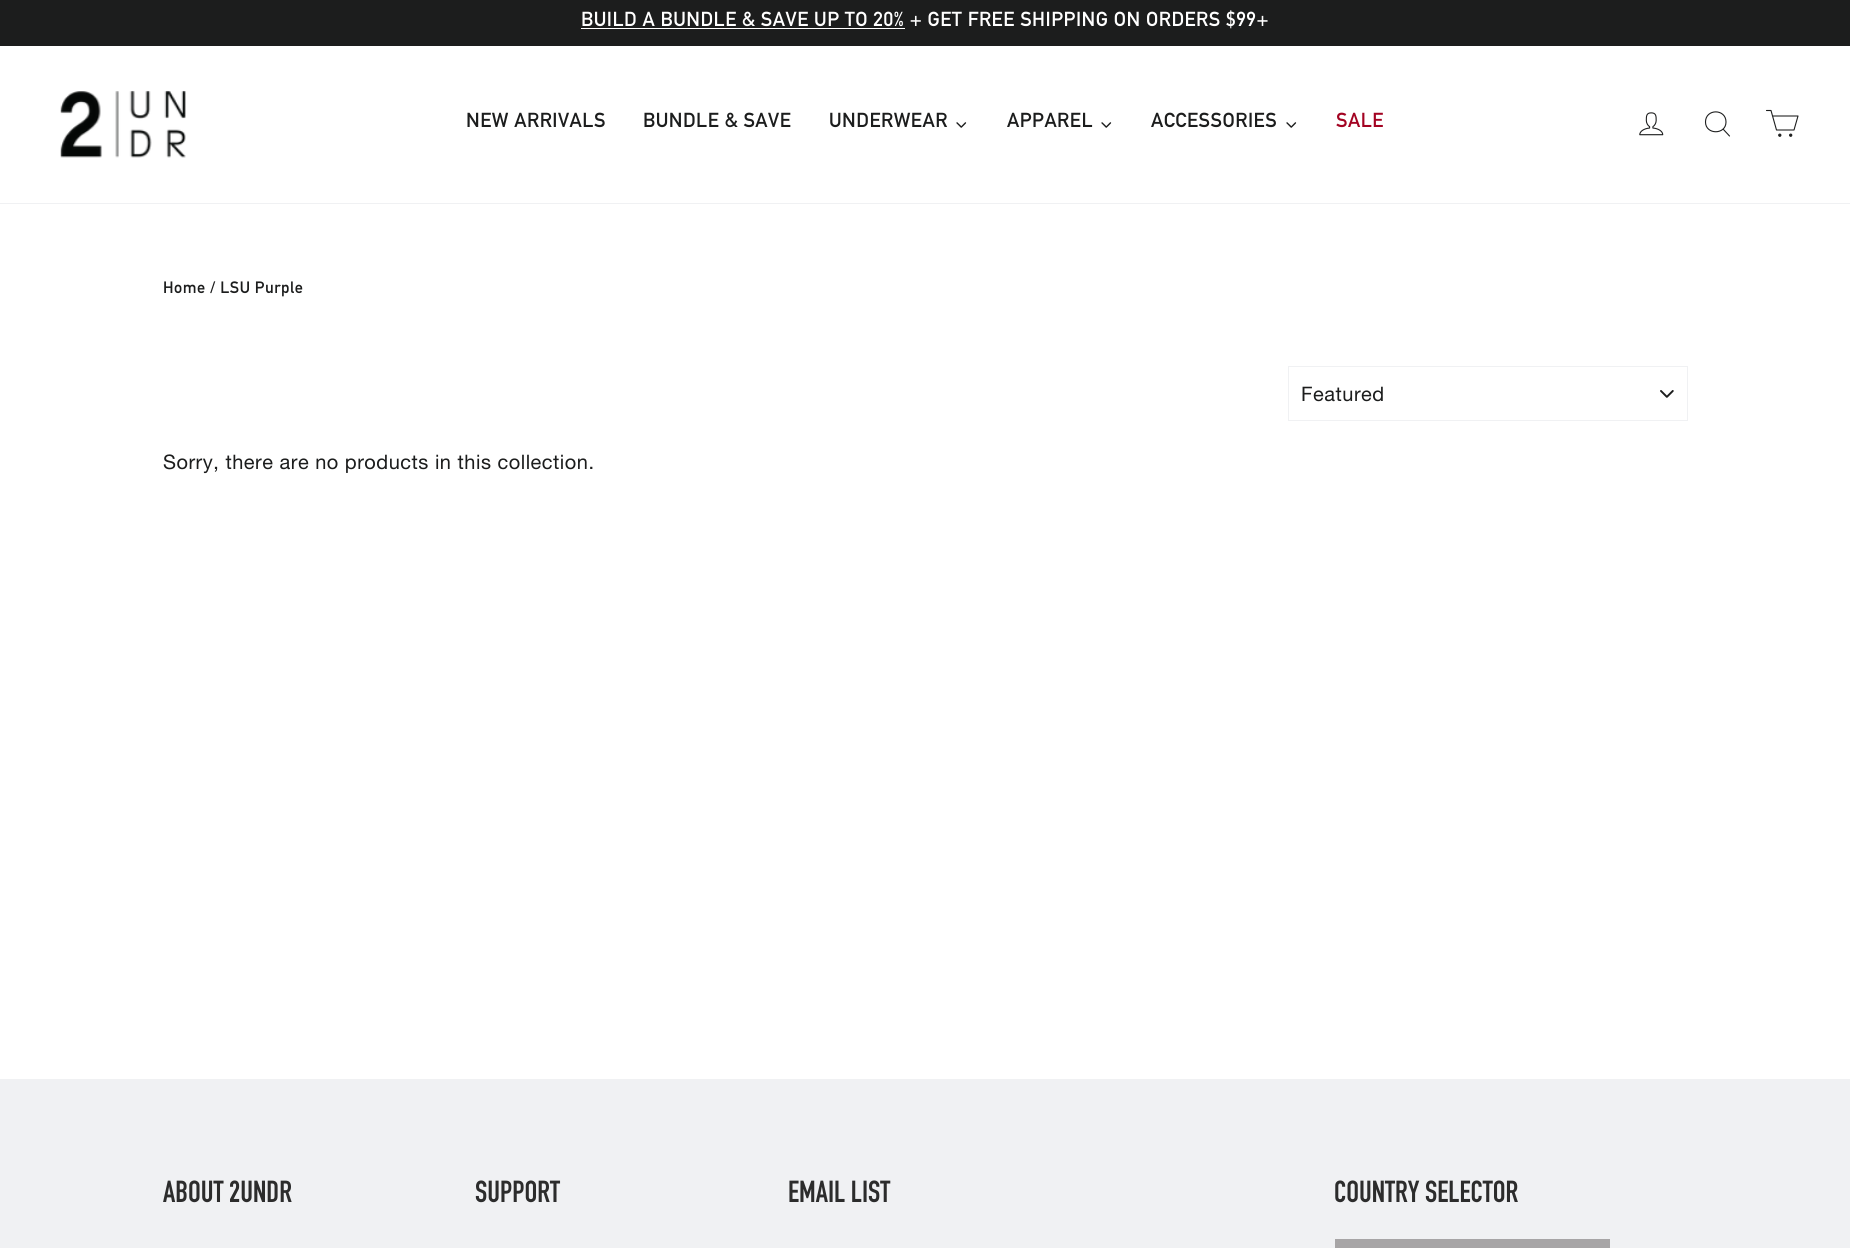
import math
import cairocffi as cairo

surface = cairo.ImageSurface(cairo.FORMAT_RGB24, 1850, 1248)
cr = cairo.Context(surface)
options = cairo.FontOptions()
options.set_hint_metrics(cairo.HINT_METRICS_OFF)
options.set_hint_style(cairo.HINT_STYLE_NONE)
cr.set_font_options(options)
cr.set_miter_limit(4)


def use_color(code):
    cr.set_source_rgb(*(v / 255 for v in bytes.fromhex(code[-6:])))


def spaced_text(x, y, s, letter, word):
    cr.move_to(x, y)
    for ch in s:
        cr.show_text(ch)
        cr.rel_move_to(letter + word * (ch == ' '), 0)


def picture(path, x, y, w, h):
    cr.save()
    cr.set_source_surface(cairo.ImageSurface.create_from_png(path), x, y)
    cr.rectangle(x, y, w, h)
    cr.fill()
    cr.restore()


use_color("#ffffff")
cr.paint()
use_color("#1c1d1d")
cr.rectangle(0, 0, 1850, 46)
cr.fill()
use_color("#ffffff")
cr.rectangle(581, 28, 324, 1)
cr.fill()
cr.select_font_face("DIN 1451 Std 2")
cr.set_font_size(20)
spaced_text(581, 26, "BUILD A BUNDLE & SAVE UP TO 20% + GET FREE SHIPPING ON ORDERS $99+", 0.5, 0)
use_color("#f0f1f3")
cr.rectangle(0, 203, 1850, 1)
cr.fill()
picture("img1.png", 60, 90, 126, 68)
use_color("#1c1d1d")
spaced_text(466, 127, "NEW ARRIVALS", 0.5, 0)
spaced_text(643, 127, "BUNDLE & SAVE", 0.5, 0)
spaced_text(829, 127, "UNDERWEAR", 0.5, 0)
picture("img2.png", 956, 122, 11, 6)
spaced_text(1007, 127, "APPAREL", 0.5, 0)
picture("img2.png", 1101, 122, 11, 6)
spaced_text(1151, 127, "ACCESSORIES", 0.5, 0)
picture("img2.png", 1286, 122, 11, 6)
use_color("#a30322")
spaced_text(1336, 127, "SALE", 0.5, 0)
picture("img3.png", 1639, 112, 25, 24)
cr.new_path()
cr.move_to(1726, 122)
cr.curve_to(1726, 135, 1705.5, 135, 1705.5, 122)
cr.curve_to(1705.5, 108.5, 1726, 108.5, 1726, 122)
cr.close_path()
cr.move_to(1729.5, 136)
cr.line_to(1723, 129)
use_color("#1c1d1d")
cr.set_line_width(1.1)
cr.set_line_cap(cairo.LINE_CAP_ROUND)
cr.set_line_join(cairo.LINE_JOIN_ROUND)
cr.stroke()
cr.new_path()
cr.move_to(1772.5, 116)
cr.line_to(1798, 116)
cr.line_to(1794, 130)
cr.line_to(1776.5, 130)
cr.line_to(1771, 110.5)
cr.line_to(1766.5, 110.5)
cr.stroke()
cr.arc(1779.8, 135.2, 1.1, 0, 2 * math.pi)
cr.fill_preserve()
cr.set_line_cap(cairo.LINE_CAP_BUTT)
cr.set_line_join(cairo.LINE_JOIN_MITER)
cr.stroke()
cr.arc(1790.7, 135.2, 1.1, 0, 2 * math.pi)
cr.fill_preserve()
cr.stroke()
cr.set_font_size(16.25)
spaced_text(163, 293, "Home / LSU Purple", 0.5, 0)
picture("img4.png", 1660, 390, 14, 8)
cr.rectangle(1288.5, 366.5, 399, 54)
use_color("#f0f1f3")
cr.set_line_width(1)
cr.stroke()
cr.select_font_face("Helvetica Neue")
cr.set_font_size(20)
use_color("#1c1d1d")
spaced_text(1301, 401, "Featured", 0.5, 0)
spaced_text(163, 469, "Sorry, there are no products in this collection.", 0.5, 0)
use_color("#f0f1f3")
cr.rectangle(0, 1079, 1850, 169)
cr.fill()
cr.select_font_face("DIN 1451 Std")
cr.set_font_size(30)
use_color("#2c2c2c")
cr.move_to(163, 1202)
cr.show_text("ABOUT 2UNDR")
cr.move_to(475, 1202)
cr.show_text("SUPPORT")
cr.move_to(788, 1202)
cr.show_text("EMAIL LIST")
cr.move_to(1334, 1202)
cr.show_text("COUNTRY SELECTOR")
use_color("#a7a5a6")
cr.rectangle(1335, 1239, 275, 9)
cr.fill()
surface.write_to_png("result.png")
